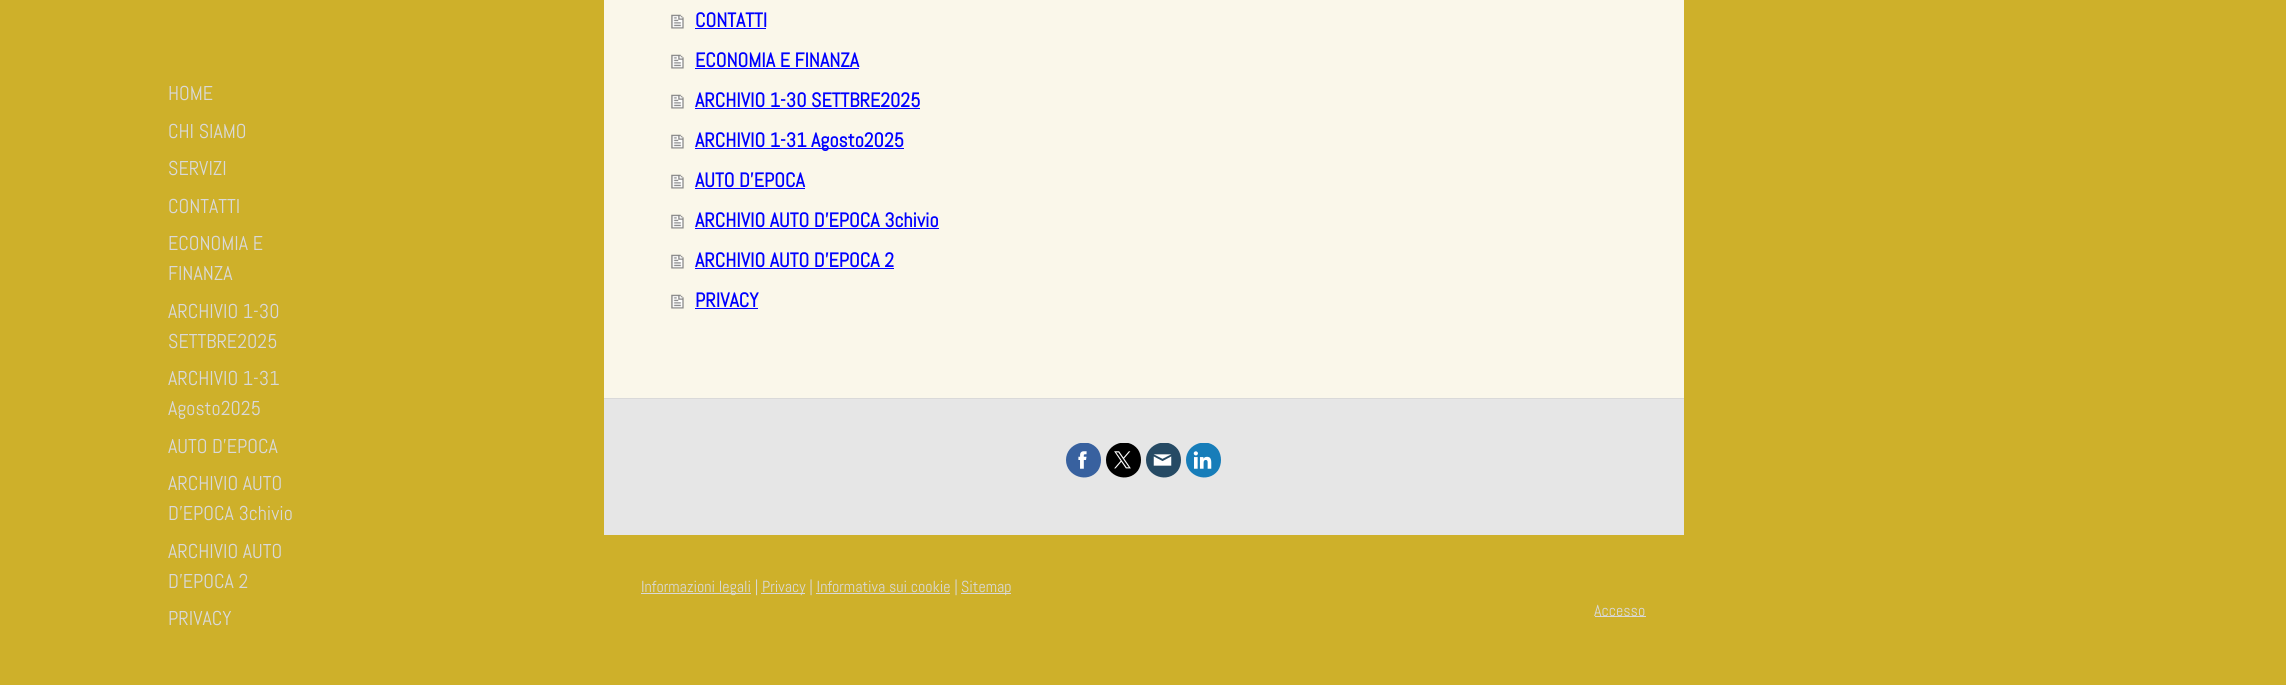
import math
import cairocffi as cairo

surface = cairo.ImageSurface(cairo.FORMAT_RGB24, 2286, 685)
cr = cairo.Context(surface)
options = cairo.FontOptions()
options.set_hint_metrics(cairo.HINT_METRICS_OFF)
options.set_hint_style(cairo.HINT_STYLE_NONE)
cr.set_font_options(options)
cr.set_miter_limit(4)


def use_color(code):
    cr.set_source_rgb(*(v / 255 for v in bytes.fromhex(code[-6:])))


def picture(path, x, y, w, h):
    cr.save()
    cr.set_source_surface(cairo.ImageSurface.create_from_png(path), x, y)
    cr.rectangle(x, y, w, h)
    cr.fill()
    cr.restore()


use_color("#ceb02a")
cr.paint()
cr.select_font_face("Abel")
cr.set_font_size(20)
use_color("#d9d9d9")
cr.move_to(168, 100)
cr.show_text("HOME")
cr.move_to(168, 138)
cr.show_text("CHI SIAMO")
cr.move_to(168, 175)
cr.show_text("SERVIZI")
cr.move_to(168, 213)
cr.show_text("CONTATTI")
cr.move_to(168, 250)
cr.show_text("ECONOMIA E")
cr.move_to(168, 280)
cr.show_text("FINANZA")
cr.move_to(168, 318)
cr.show_text("ARCHIVIO 1-30")
cr.move_to(168, 348)
cr.show_text("SETTBRE2025")
cr.move_to(168, 385)
cr.show_text("ARCHIVIO 1-31")
cr.move_to(168, 415)
cr.show_text("Agosto2025")
cr.move_to(168, 453)
cr.show_text("AUTO D'EPOCA")
cr.move_to(168, 490)
cr.show_text("ARCHIVIO AUTO")
cr.move_to(168, 520)
cr.show_text("D'EPOCA 3chivio")
cr.move_to(168, 558)
cr.show_text("ARCHIVIO AUTO")
cr.move_to(168, 588)
cr.show_text("D'EPOCA 2")
cr.move_to(168, 625)
cr.show_text("PRIVACY")
use_color("#faf7ea")
cr.rectangle(604, 0, 1080, 398)
cr.fill()
picture("img1.png", 671, 14, 13, 15)
cr.select_font_face("Abel", cairo.FONT_SLANT_NORMAL, cairo.FONT_WEIGHT_BOLD)
use_color("#0000ff")
cr.move_to(695, 27)
cr.show_text("CONTATTI")
cr.rectangle(695, 28, 71, 1)
cr.fill()
picture("img1.png", 671, 54, 13, 15)
cr.move_to(695, 67)
cr.show_text("ECONOMIA E FINANZA")
cr.rectangle(695, 68, 164, 1)
cr.fill()
picture("img1.png", 671, 94, 13, 15)
cr.move_to(695, 107)
cr.show_text("ARCHIVIO 1-30 SETTBRE2025")
cr.rectangle(695, 108, 225, 1)
cr.fill()
picture("img1.png", 671, 134, 13, 15)
cr.rectangle(695, 148, 209, 1)
cr.fill()
cr.move_to(695, 147)
cr.show_text("ARCHIVIO 1-31 Agosto2025")
picture("img1.png", 671, 174, 13, 15)
cr.move_to(695, 187)
cr.show_text("AUTO D'EPOCA")
cr.rectangle(695, 188, 110, 1)
cr.fill()
picture("img1.png", 671, 214, 13, 15)
cr.move_to(695, 227)
cr.show_text("ARCHIVIO AUTO D'EPOCA 3chivio")
cr.rectangle(695, 228, 244, 1)
cr.fill()
picture("img2.png", 671, 254, 13, 15)
cr.move_to(695, 267)
cr.show_text("ARCHIVIO AUTO D'EPOCA 2")
cr.rectangle(695, 268, 199, 1)
cr.fill()
picture("img1.png", 671, 294, 13, 15)
cr.move_to(695, 307)
cr.show_text("PRIVACY")
cr.rectangle(695, 308, 63, 1)
cr.fill()
use_color("#e6e6e6")
cr.rectangle(604, 399, 1080, 136)
cr.fill()
use_color("#d9d9d9")
cr.rectangle(604, 398, 1080, 1)
cr.fill()
cr.save()
cr.rectangle(648, 443, 992, 48)
cr.clip()
use_color("#38619f")
cr.new_path()
cr.move_to(1066, 460)
cr.curve_to(1066, 476.5, 1088, 484, 1098, 470.5)
cr.curve_to(1100, 467.5, 1101, 463.5, 1101, 460)
cr.curve_to(1101, 456.5, 1100, 452.5, 1098, 449.5)
cr.curve_to(1088, 436, 1066, 443.5, 1066, 460)
cr.close_path()
cr.fill()
cr.restore()
picture("img3.png", 1078, 451, 9, 18)
cr.save()
cr.rectangle(648, 443, 992, 48)
cr.clip()
use_color("#000000")
cr.new_path()
cr.move_to(1106, 460)
cr.curve_to(1106, 476.5, 1128, 484, 1138, 470.5)
cr.curve_to(1140, 467.5, 1141, 463.5, 1141, 460)
cr.curve_to(1141, 456.5, 1140, 452.5, 1138, 449.5)
cr.curve_to(1128, 436, 1106, 443.5, 1106, 460)
cr.close_path()
cr.fill()
cr.restore()
picture("img4.png", 1114, 451, 17, 18)
cr.save()
cr.rectangle(648, 443, 992, 48)
cr.clip()
use_color("#264a64")
cr.new_path()
cr.move_to(1146, 460)
cr.curve_to(1146, 476.5, 1168, 484, 1178, 470.5)
cr.curve_to(1180, 467.5, 1181, 463.5, 1181, 460)
cr.curve_to(1181, 456.5, 1180, 452.5, 1178, 449.5)
cr.curve_to(1168, 436, 1146, 443.5, 1146, 460)
cr.close_path()
cr.fill()
cr.restore()
picture("img5.png", 1153, 454, 19, 12)
cr.save()
cr.rectangle(648, 443, 992, 48)
cr.clip()
use_color("#177db9")
cr.new_path()
cr.move_to(1186, 460)
cr.curve_to(1186, 476.5, 1208, 484, 1218, 470.5)
cr.curve_to(1220, 467.5, 1221, 463.5, 1221, 460)
cr.curve_to(1221, 456.5, 1220, 452.5, 1218, 449.5)
cr.curve_to(1208, 436, 1186, 443.5, 1186, 460)
cr.close_path()
cr.fill()
cr.restore()
picture("img6.png", 1193, 451, 19, 18)
cr.rectangle(641, 593, 110, 1)
cr.fill()
cr.select_font_face("Abel")
cr.set_font_size(16)
cr.move_to(641, 592)
cr.show_text("Informazioni legali |")
cr.rectangle(761, 593, 44, 1)
cr.fill()
cr.move_to(762, 592)
cr.show_text("Privacy | Informativa sui cookie |")
cr.rectangle(961, 593, 50, 1)
cr.fill()
cr.move_to(961, 592)
cr.show_text("Sitemap")
cr.rectangle(816, 593, 134, 1)
cr.fill()
cr.rectangle(1595, 616, 51, 1)
cr.fill()
cr.move_to(1594, 616)
cr.show_text("Accesso")
surface.write_to_png("result.png")
